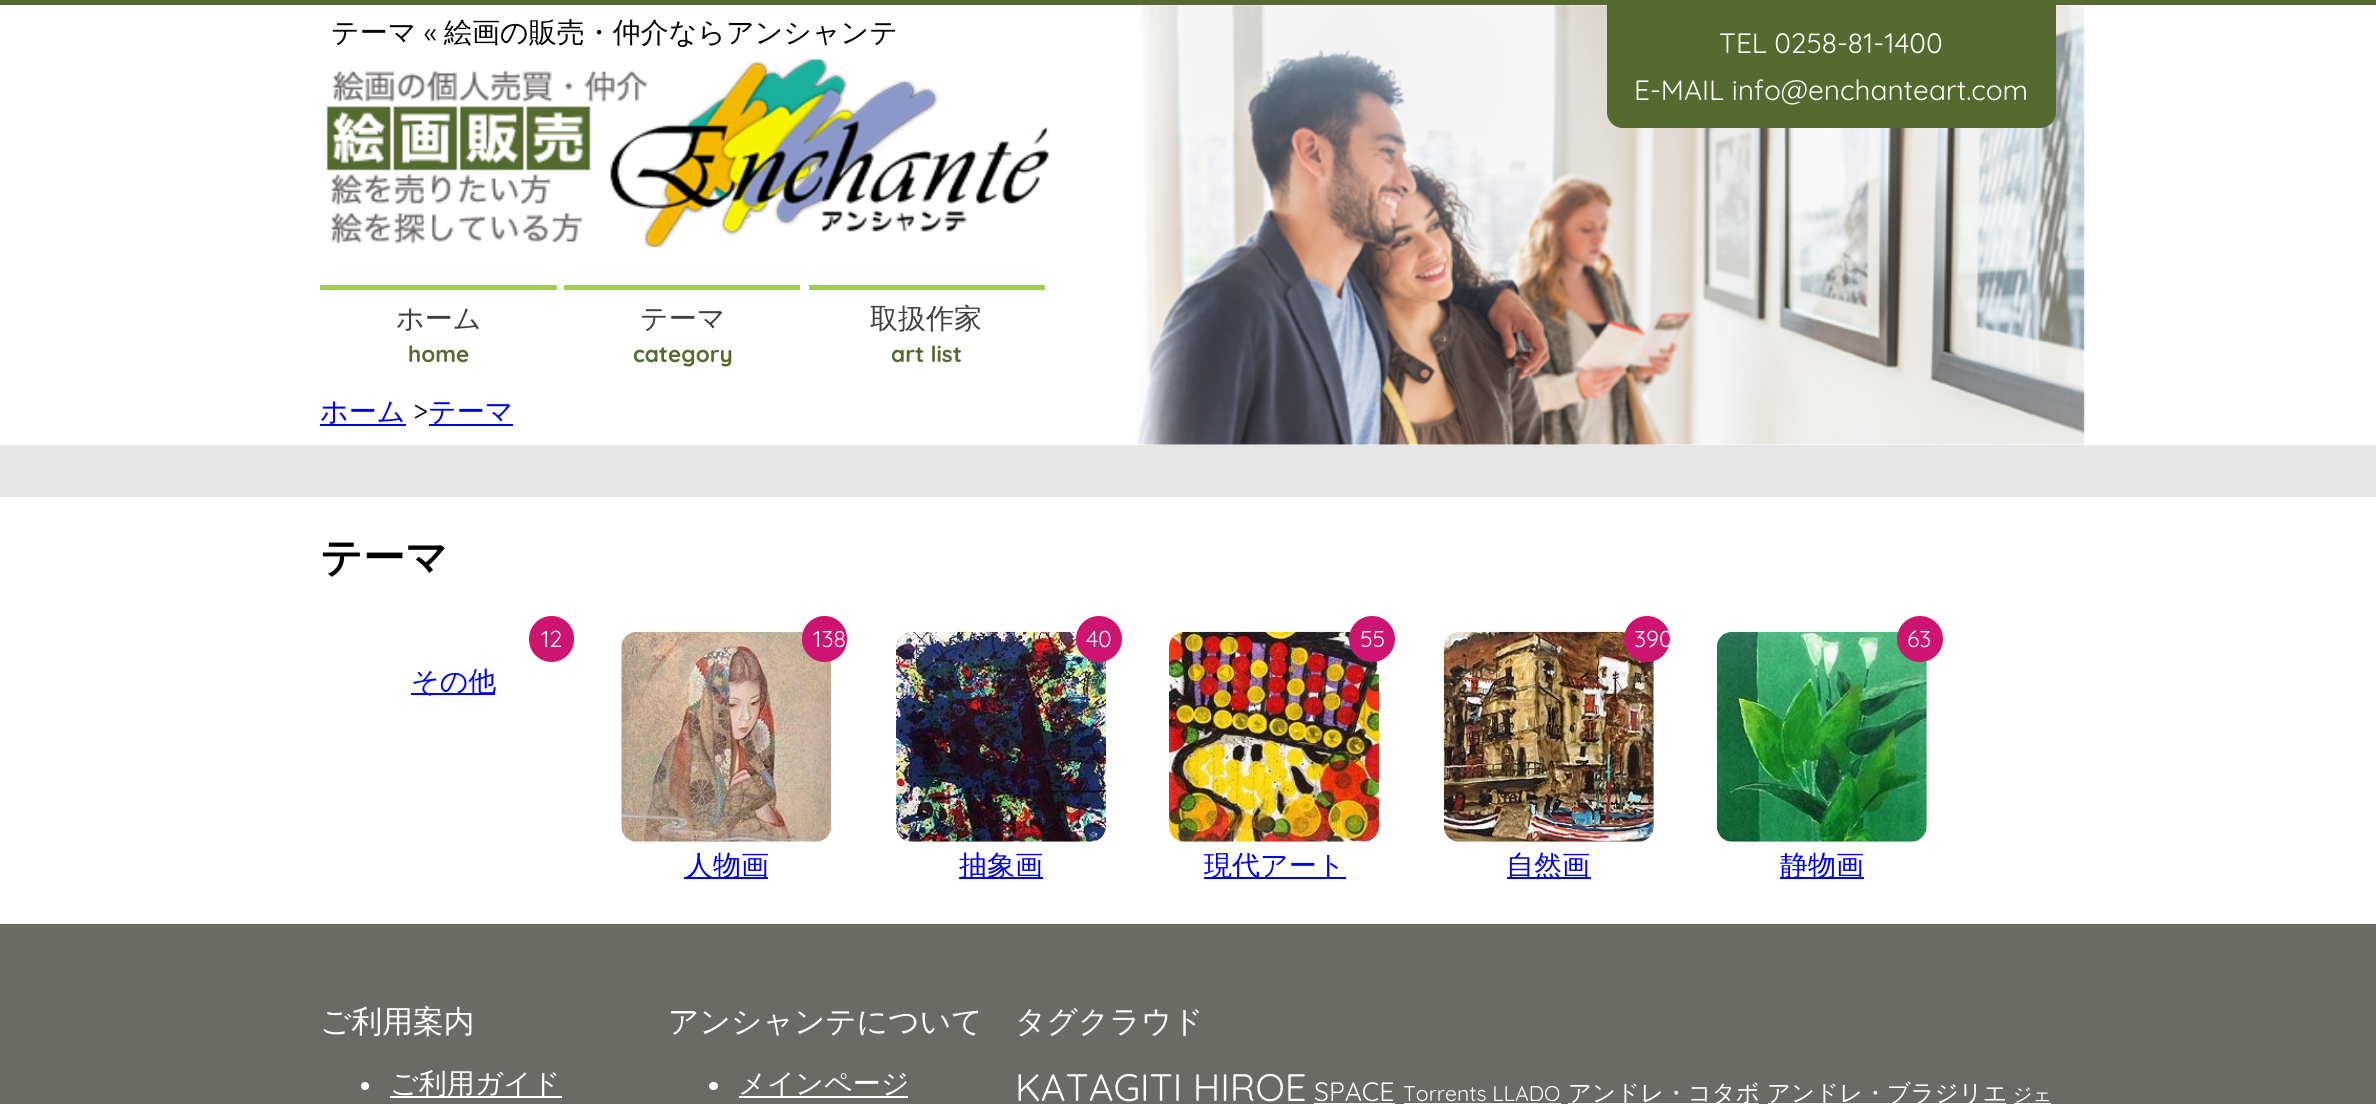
import math
import cairocffi as cairo

surface = cairo.ImageSurface(cairo.FORMAT_RGB24, 2376, 1104)
cr = cairo.Context(surface)
options = cairo.FontOptions()
options.set_hint_metrics(cairo.HINT_METRICS_OFF)
options.set_hint_style(cairo.HINT_STYLE_NONE)
cr.set_font_options(options)
cr.set_miter_limit(4)


def use_color(code):
    cr.set_source_rgb(*(v / 255 for v in bytes.fromhex(code[-6:])))


def round_rect(x, y, w, h, r):
    cr.new_sub_path()
    for i, (u, v) in enumerate([(x + w - r, y + h - r), (x + r, y + h - r), (x + r, y + r), (x + w - r, y + r)]):
        cr.arc(u, v, r, i * math.pi / 2, (i + 1) * math.pi / 2)
    cr.close_path()


def picture(path, x, y, w, h):
    cr.save()
    cr.set_source_surface(cairo.ImageSurface.create_from_png(path), x, y)
    cr.rectangle(x, y, w, h)
    cr.fill()
    cr.restore()


use_color("#ffffff")
cr.paint()
use_color("#546a2f")
cr.rectangle(0, 0, 2376, 5)
cr.fill()
picture("img1.png", 1137, 5, 948, 440)
cr.select_font_face("WenQuanYi Zen Hei Medium")
cr.set_font_size(28)
use_color("#000000")
cr.move_to(331, 42)
cr.show_text("テーマ")
cr.select_font_face("Quicksand")
cr.move_to(424, 42)
cr.show_text("«")
cr.select_font_face("WenQuanYi Zen Hei Medium")
cr.move_to(444, 42)
cr.show_text("絵画の販売・仲介ならアンシャンテ")
use_color("#546a2f")
cr.new_path()
cr.move_to(1607, 5)
cr.line_to(2056, 5)
cr.line_to(2056, 112)
cr.curve_to(2056, 121, 2049, 128, 2040, 128)
cr.line_to(1623, 128)
cr.curve_to(1614, 128, 1607, 121, 1607, 112)
cr.close_path()
cr.fill()
cr.select_font_face("Quicksand")
use_color("#ffffff")
cr.move_to(1719, 53)
cr.show_text("TEL 0258-81-1400")
cr.move_to(1634, 100)
cr.show_text("E-MAIL info@enchanteart.com")
picture("img2.png", 326, 59, 723, 188)
use_color("#a2cc5a")
cr.rectangle(320, 285, 237, 5)
cr.fill()
cr.select_font_face("WenQuanYi Zen Hei Medium")
use_color("#3f3f3f")
cr.move_to(396, 328)
cr.show_text("ホーム")
cr.select_font_face("Quicksand", cairo.FONT_SLANT_NORMAL, cairo.FONT_WEIGHT_BOLD)
cr.set_font_size(22.5)
use_color("#546a2f")
cr.move_to(408, 362)
cr.show_text("home")
use_color("#a2cc5a")
cr.rectangle(564, 285, 236, 5)
cr.fill()
cr.select_font_face("WenQuanYi Zen Hei Medium")
cr.set_font_size(28)
use_color("#3f3f3f")
cr.move_to(640, 328)
cr.show_text("テーマ")
cr.select_font_face("Quicksand", cairo.FONT_SLANT_NORMAL, cairo.FONT_WEIGHT_BOLD)
cr.set_font_size(22.5)
use_color("#546a2f")
cr.move_to(633, 362)
cr.show_text("category")
use_color("#a2cc5a")
cr.rectangle(809, 285, 236, 5)
cr.fill()
cr.select_font_face("WenQuanYi Zen Hei Medium")
cr.set_font_size(28)
use_color("#3f3f3f")
cr.move_to(870, 328)
cr.show_text("取扱作家")
cr.select_font_face("Quicksand", cairo.FONT_SLANT_NORMAL, cairo.FONT_WEIGHT_BOLD)
cr.set_font_size(22.5)
use_color("#546a2f")
cr.move_to(891, 362)
cr.show_text("art list")
cr.select_font_face("WenQuanYi Zen Hei Medium")
cr.set_font_size(28)
use_color("#0000ee")
cr.move_to(320, 421)
cr.show_text("ホーム")
cr.rectangle(320, 424, 86, 2)
cr.fill()
cr.select_font_face("Quicksand")
use_color("#000000")
cr.move_to(413, 421)
cr.show_text(">")
use_color("#0000ee")
cr.rectangle(429, 424, 84, 2)
cr.fill()
cr.select_font_face("WenQuanYi Zen Hei Medium")
cr.move_to(428, 421)
cr.show_text("テーマ")
use_color("#e6e6e6")
cr.rectangle(0, 445, 2376, 52)
cr.fill()
cr.select_font_face("WenQuanYi Zen Hei", cairo.FONT_SLANT_NORMAL, cairo.FONT_WEIGHT_BOLD)
cr.set_font_size(42)
use_color("#000000")
cr.move_to(320, 572)
cr.show_text("テーマ")
use_color("#cc1470")
round_rect(529, 616, 45, 46, 22.5)
cr.fill()
cr.select_font_face("Quicksand")
cr.set_font_size(23)
use_color("#ffffff")
cr.move_to(541, 647)
cr.show_text("12")
use_color("#0000ee")
cr.rectangle(411, 693, 84, 2)
cr.fill()
cr.select_font_face("WenQuanYi Zen Hei Medium")
cr.set_font_size(28)
cr.move_to(411, 691)
cr.show_text("その他")
picture("img3.png", 621, 631, 211, 211)
use_color("#cc1470")
round_rect(802, 616, 45, 46, 22.5)
cr.fill()
cr.select_font_face("Quicksand")
cr.set_font_size(23)
use_color("#ffffff")
cr.move_to(813, 647)
cr.show_text("138")
use_color("#0000ee")
cr.rectangle(684, 877, 84, 2)
cr.fill()
cr.select_font_face("WenQuanYi Zen Hei Medium")
cr.set_font_size(28)
cr.move_to(685, 875)
cr.show_text("人物画")
picture("img4.png", 896, 631, 210, 211)
use_color("#cc1470")
cr.arc(1099, 639, 23, 0, 2 * math.pi)
cr.fill()
cr.select_font_face("Quicksand")
cr.set_font_size(23)
use_color("#ffffff")
cr.move_to(1086, 647)
cr.show_text("40")
use_color("#0000ee")
cr.rectangle(959, 877, 84, 2)
cr.fill()
cr.select_font_face("WenQuanYi Zen Hei Medium")
cr.set_font_size(28)
cr.move_to(959, 875)
cr.show_text("抽象画")
picture("img5.png", 1169, 631, 210, 211)
use_color("#cc1470")
cr.arc(1372, 639, 23, 0, 2 * math.pi)
cr.fill()
cr.select_font_face("Quicksand")
cr.set_font_size(23)
use_color("#ffffff")
cr.move_to(1360, 647)
cr.show_text("55")
use_color("#0000ee")
cr.rectangle(1204, 877, 142, 2)
cr.fill()
cr.select_font_face("WenQuanYi Zen Hei Medium")
cr.set_font_size(28)
cr.move_to(1204, 875)
cr.show_text("現代アート")
picture("img6.png", 1443, 631, 211, 211)
use_color("#cc1470")
cr.arc(1647, 639, 23, 0, 2 * math.pi)
cr.fill()
cr.select_font_face("Quicksand")
cr.set_font_size(23)
use_color("#ffffff")
cr.move_to(1634, 647)
cr.show_text("390")
use_color("#0000ee")
cr.rectangle(1507, 877, 84, 2)
cr.fill()
cr.select_font_face("WenQuanYi Zen Hei Medium")
cr.set_font_size(28)
cr.move_to(1506, 875)
cr.show_text("自然画")
picture("img7.png", 1716, 631, 211, 211)
use_color("#cc1470")
cr.arc(1920, 639, 23, 0, 2 * math.pi)
cr.fill()
cr.select_font_face("Quicksand")
cr.set_font_size(23)
use_color("#ffffff")
cr.move_to(1907, 647)
cr.show_text("63")
use_color("#0000ee")
cr.rectangle(1780, 877, 84, 2)
cr.fill()
cr.select_font_face("WenQuanYi Zen Hei Medium")
cr.set_font_size(28)
cr.move_to(1780, 875)
cr.show_text("静物画")
use_color("#6a6b65")
cr.rectangle(0, 924, 2376, 180)
cr.fill()
cr.set_font_size(30.75)
use_color("#ffffff")
cr.move_to(320, 1032)
cr.show_text("ご利用案内")
cr.new_path()
cr.arc(365, 1086, 4, 0, 2 * math.pi)
cr.fill()
cr.rectangle(390, 1096, 172, 2)
cr.fill()
cr.set_font_size(28)
cr.move_to(390, 1093)
cr.show_text("ご利用ガイド")
cr.set_font_size(30.75)
cr.move_to(668, 1032)
cr.show_text("アンシャンテについて")
round_rect(709, 1082, 9, 8, 4)
cr.fill()
cr.rectangle(739, 1096, 169, 2)
cr.fill()
cr.set_font_size(28)
cr.move_to(738, 1093)
cr.show_text("メインページ")
cr.set_font_size(30.75)
cr.move_to(1015, 1032)
cr.show_text("タグクラウド")
cr.select_font_face("Quicksand")
cr.set_font_size(38.25)
cr.move_to(1015, 1101)
cr.show_text("KATAGITI HIROE")
cr.set_font_size(26.5)
cr.move_to(1314, 1101)
cr.show_text("SPACE")
cr.rectangle(1314, 1103, 81, 1)
cr.fill()
cr.set_font_size(21.25)
cr.move_to(1403, 1101)
cr.show_text("Torrents LLADO")
cr.rectangle(1404, 1103, 157, 1)
cr.fill()
cr.rectangle(1568, 1103, 191, 1)
cr.fill()
cr.select_font_face("WenQuanYi Zen Hei Medium")
cr.set_font_size(23.5)
cr.move_to(1568, 1101)
cr.show_text("アンドレ・コタボ")
cr.rectangle(1768, 1103, 238, 1)
cr.fill()
cr.move_to(1767, 1101)
cr.show_text("アンドレ・ブラジリエ")
cr.set_font_size(19)
cr.move_to(2013, 1101)
cr.show_text("ジェ")
cr.rectangle(2014, 1103, 37, 1)
cr.fill()
surface.write_to_png("result.png")
